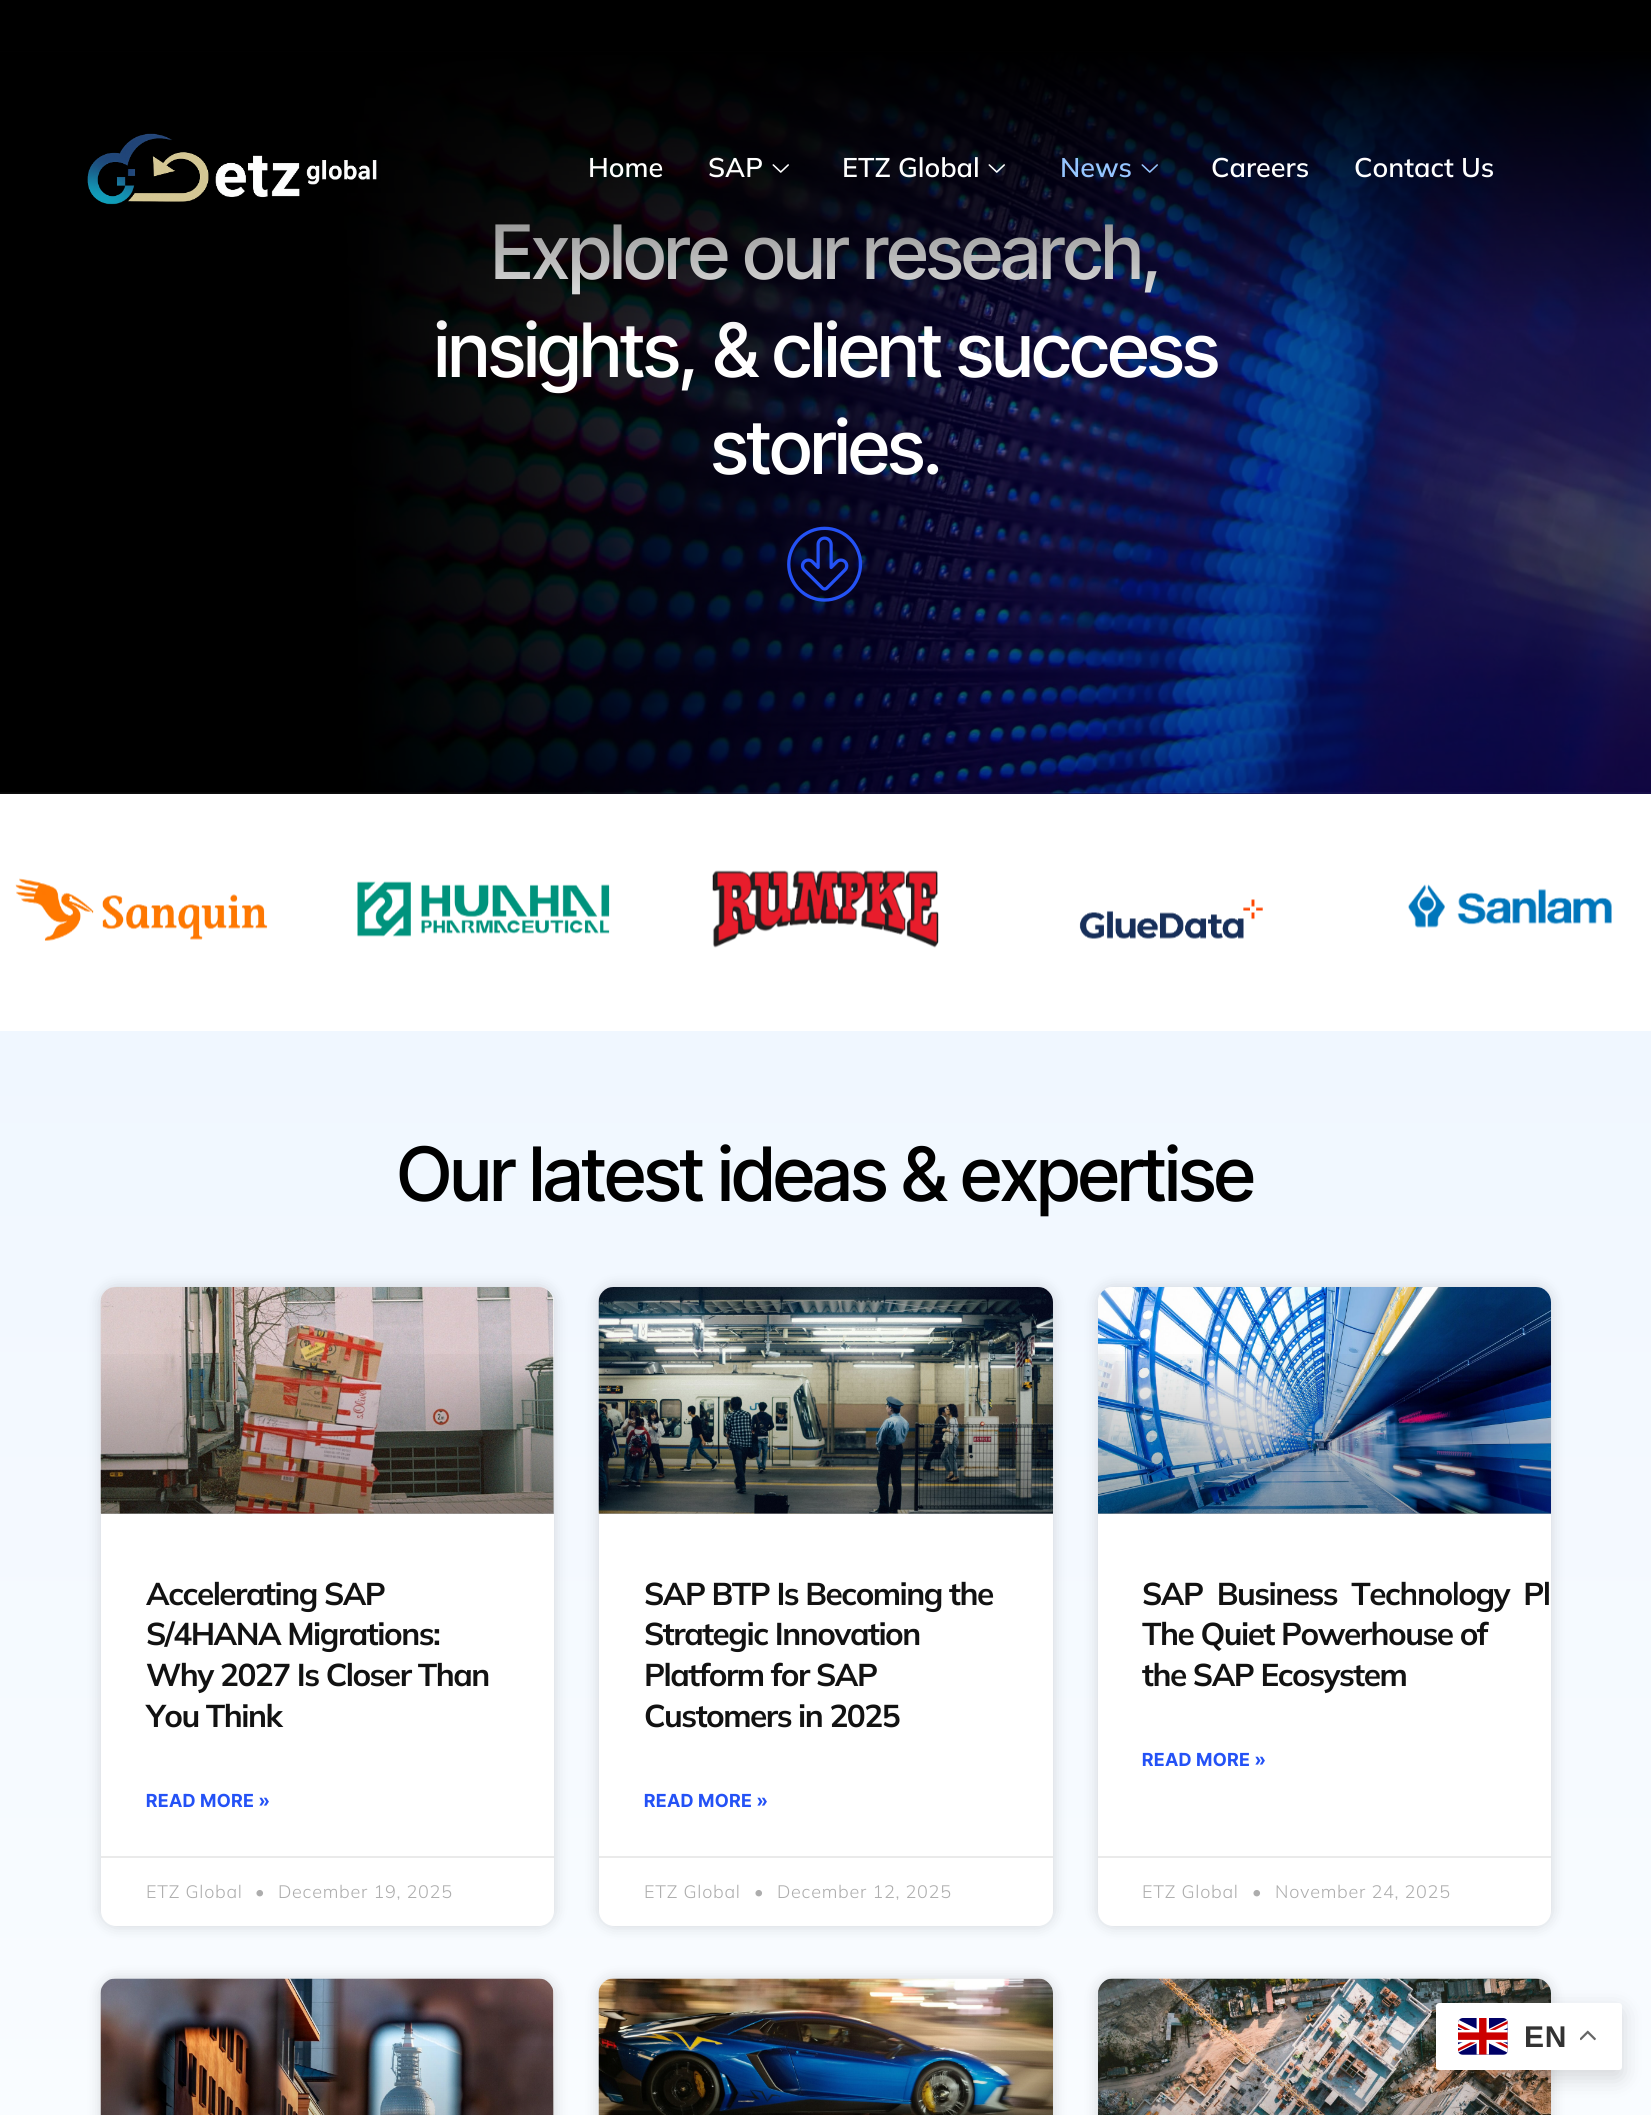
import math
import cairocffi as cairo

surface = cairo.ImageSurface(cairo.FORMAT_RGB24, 1651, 2115)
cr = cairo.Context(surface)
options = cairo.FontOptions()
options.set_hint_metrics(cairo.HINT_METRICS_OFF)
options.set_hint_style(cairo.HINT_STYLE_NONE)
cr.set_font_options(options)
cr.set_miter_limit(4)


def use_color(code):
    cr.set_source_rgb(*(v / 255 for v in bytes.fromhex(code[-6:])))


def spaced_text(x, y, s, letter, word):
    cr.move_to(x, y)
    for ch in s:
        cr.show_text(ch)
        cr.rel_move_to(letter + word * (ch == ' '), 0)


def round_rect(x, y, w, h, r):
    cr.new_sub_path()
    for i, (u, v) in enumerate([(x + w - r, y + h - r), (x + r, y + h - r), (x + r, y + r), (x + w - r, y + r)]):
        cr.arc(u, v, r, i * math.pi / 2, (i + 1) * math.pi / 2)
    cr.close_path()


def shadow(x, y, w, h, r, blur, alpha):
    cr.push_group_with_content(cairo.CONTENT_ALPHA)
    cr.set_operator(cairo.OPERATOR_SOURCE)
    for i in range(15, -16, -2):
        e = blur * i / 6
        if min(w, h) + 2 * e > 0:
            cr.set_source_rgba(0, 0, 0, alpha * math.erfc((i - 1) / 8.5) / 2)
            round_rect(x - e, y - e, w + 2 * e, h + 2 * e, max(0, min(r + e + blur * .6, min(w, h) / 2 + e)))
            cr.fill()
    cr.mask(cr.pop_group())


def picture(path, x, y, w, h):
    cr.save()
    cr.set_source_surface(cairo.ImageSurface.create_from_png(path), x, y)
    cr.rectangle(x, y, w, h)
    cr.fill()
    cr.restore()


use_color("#ffffff")
cr.paint()
use_color("#020202")
cr.rectangle(0, 793, 1651, 1)
cr.fill()
picture("img5.png", 0, 52, 1651, 742)
gradient = cairo.LinearGradient(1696, 566, -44, 228)
gradient.add_color_stop_rgba(0.27, 0.024, 0.004, 0.357, 0.61)
gradient.add_color_stop_rgba(0.65, 0, 0, 0, 0.65)
cr.set_source(gradient)
cr.rectangle(0, 52, 1651, 742)
cr.fill()
cr.select_font_face("Inter Tight Medium")
cr.set_font_size(75)
use_color("#ffffff")
spaced_text(491, 279, "Explore our research,", -1.5, 0)
spaced_text(434, 377, "insights, & client success", -1.5, 0)
gradient = cairo.LinearGradient(826, 0, 826, 336)
gradient.add_color_stop_rgba(0.15, 0, 0, 0, 1)
gradient.add_color_stop_rgba(1, 0, 0, 0, 0)
cr.set_source(gradient)
cr.rectangle(0, 0, 1651, 330)
cr.fill()
picture("img1.png", 87, 133, 290, 72)
cr.select_font_face("Mulish SemiBold")
cr.set_font_size(27)
use_color("#ffffff")
cr.move_to(588, 177)
cr.show_text("Home")
cr.move_to(708, 177)
cr.show_text("SAP")
picture("img2.png", 772, 164, 17, 9)
cr.move_to(842, 177)
cr.show_text("ETZ Global")
picture("img3.png", 988, 164, 17, 9)
use_color("#96c5ff")
cr.move_to(1060, 177)
cr.show_text("News")
picture("img4.png", 1141, 164, 17, 9)
use_color("#ffffff")
cr.move_to(1211, 177)
cr.show_text("Careers")
cr.move_to(1354, 177)
cr.show_text("Contact Us")
cr.select_font_face("Inter Tight Medium")
cr.set_font_size(75)
spaced_text(711, 474, "stories.", -1.5, 0)
picture("img6.png", 787, 526, 76, 76)
picture("img7.png", 15, 878, 253, 63)
picture("img8.png", 357, 881, 253, 56)
picture("img9.png", 712, 870, 227, 78)
picture("img10.png", 1079, 899, 184, 40)
picture("img11.png", 1408, 884, 204, 44)
gradient = cairo.LinearGradient(826, 1030, 826, 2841)
gradient.add_color_stop_rgba(0, 0.941, 0.969, 1, 1)
gradient.add_color_stop_rgba(1, 1, 1, 1, 1)
cr.set_source(gradient)
cr.rectangle(0, 1031, 1651, 1084)
cr.fill()
use_color("#000000")
spaced_text(397, 1201, "Our latest ideas & expertise", -1.5, 0)
use_color("#000000")
shadow(101, 1287, 453, 639, 15, 7.5, 0.15)
use_color("#ffffff")
round_rect(101, 1287, 453, 639, 15)
cr.fill()
picture("img12.png", 100, 1287, 454, 227)
gradient = cairo.LinearGradient(327, 1514, 327, 1287)
gradient.add_color_stop_rgba(0, 0, 0, 0, 0.35)
gradient.add_color_stop_rgba(0.75, 0, 0, 0, 0)
cr.set_source(gradient)
cr.rectangle(101, 1354, 453, 160)
cr.fill()
cr.select_font_face("Mulish", cairo.FONT_SLANT_NORMAL, cairo.FONT_WEIGHT_BOLD)
cr.set_font_size(31.5)
use_color("#121212")
spaced_text(146, 1605, "Accelerating SAP", -1.5, 0)
spaced_text(146, 1645, "S/4HANA Migrations:", -1.5, 0)
spaced_text(146, 1686, "Why 2027 Is Closer Than", -1.5, 0)
spaced_text(146, 1727, "You Think", -1.5, 0)
cr.select_font_face("Inter Tight", cairo.FONT_SLANT_NORMAL, cairo.FONT_WEIGHT_BOLD)
cr.set_font_size(18)
use_color("#2452f6")
spaced_text(146, 1807, "READ MORE »", 0.75, 0)
use_color("#eaeaea")
cr.rectangle(101, 1856, 453, 2)
cr.fill()
cr.select_font_face("Mulish Light")
use_color("#adadad")
spaced_text(146, 1898, "ETZ Global", 0.75, 0)
spaced_text(255, 1898, "•", 0.75, 0)
spaced_text(278, 1898, "December 19, 2025", 0.75, 0)
use_color("#000000")
shadow(599, 1287, 454, 639, 15, 7.5, 0.15)
use_color("#ffffff")
round_rect(599, 1287, 454, 639, 15)
cr.fill()
picture("img13.png", 598, 1287, 455, 227)
gradient = cairo.LinearGradient(826, 1514, 826, 1287)
gradient.add_color_stop_rgba(0, 0, 0, 0, 0.35)
gradient.add_color_stop_rgba(0.75, 0, 0, 0, 0)
cr.set_source(gradient)
cr.rectangle(599, 1354, 454, 160)
cr.fill()
cr.select_font_face("Mulish", cairo.FONT_SLANT_NORMAL, cairo.FONT_WEIGHT_BOLD)
cr.set_font_size(31.5)
use_color("#121212")
spaced_text(644, 1605, "SAP BTP Is Becoming the", -1.5, 0)
spaced_text(644, 1645, "Strategic Innovation", -1.5, 0)
spaced_text(644, 1686, "Platform for SAP", -1.5, 0)
spaced_text(644, 1727, "Customers in 2025", -1.5, 0)
cr.select_font_face("Inter Tight", cairo.FONT_SLANT_NORMAL, cairo.FONT_WEIGHT_BOLD)
cr.set_font_size(18)
use_color("#2452f6")
spaced_text(644, 1807, "READ MORE »", 0.75, 0)
use_color("#eaeaea")
cr.rectangle(599, 1856, 454, 2)
cr.fill()
cr.select_font_face("Mulish Light")
use_color("#adadad")
spaced_text(644, 1898, "ETZ Global", 0.75, 0)
spaced_text(754, 1898, "•", 0.75, 0)
spaced_text(777, 1898, "December 12, 2025", 0.75, 0)
use_color("#000000")
shadow(1098, 1287, 453, 639, 15, 7.5, 0.15)
use_color("#ffffff")
round_rect(1098, 1287, 453, 639, 15)
cr.fill()
picture("img14.png", 1098, 1287, 453, 227)
gradient = cairo.LinearGradient(1325, 1514, 1325, 1287)
gradient.add_color_stop_rgba(0, 0, 0, 0, 0.35)
gradient.add_color_stop_rgba(0.75, 0, 0, 0, 0)
cr.set_source(gradient)
cr.rectangle(1098, 1354, 453, 160)
cr.fill()
cr.save()
round_rect(1098, 1287, 453, 639, 15)
cr.clip()
cr.select_font_face("Mulish", cairo.FONT_SLANT_NORMAL, cairo.FONT_WEIGHT_BOLD)
cr.set_font_size(31.5)
use_color("#121212")
spaced_text(1142, 1605, "SAP Business Technology Platf", -1.5, 0)
cr.restore()
cr.select_font_face("Mulish", cairo.FONT_SLANT_NORMAL, cairo.FONT_WEIGHT_BOLD)
cr.set_font_size(31.5)
use_color("#121212")
spaced_text(1142, 1645, "The Quiet Powerhouse of", -1.5, 0)
spaced_text(1142, 1686, "the SAP Ecosystem", -1.5, 0)
cr.select_font_face("Inter Tight", cairo.FONT_SLANT_NORMAL, cairo.FONT_WEIGHT_BOLD)
cr.set_font_size(18)
use_color("#2452f6")
spaced_text(1142, 1766, "READ MORE »", 0.75, 0)
use_color("#eaeaea")
cr.rectangle(1098, 1856, 453, 2)
cr.fill()
cr.select_font_face("Mulish Light")
use_color("#adadad")
spaced_text(1142, 1898, "ETZ Global", 0.75, 0)
spaced_text(1252, 1898, "•", 0.75, 0)
spaced_text(1275, 1898, "November 24, 2025", 0.75, 0)
use_color("#000000")
shadow(101, 1979, 453, 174, 15, 7.5, 0.15)
use_color("#ffffff")
round_rect(101, 1979, 453, 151, 15)
cr.fill()
picture("img15.png", 100, 1978, 454, 137)
gradient = cairo.LinearGradient(327, 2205, 327, 1979)
gradient.add_color_stop_rgba(0, 0, 0, 0, 0.35)
gradient.add_color_stop_rgba(0.75, 0, 0, 0, 0)
cr.set_source(gradient)
cr.rectangle(101, 2046, 453, 69)
cr.fill()
use_color("#000000")
shadow(599, 1979, 454, 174, 15, 7.5, 0.15)
picture("img16.png", 598, 1978, 455, 137)
gradient = cairo.LinearGradient(826, 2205, 826, 1979)
gradient.add_color_stop_rgba(0, 0, 0, 0, 0.35)
gradient.add_color_stop_rgba(0.75, 0, 0, 0, 0)
cr.set_source(gradient)
cr.rectangle(599, 2046, 454, 69)
cr.fill()
use_color("#000000")
shadow(1098, 1979, 453, 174, 15, 7.5, 0.15)
picture("img17.png", 1098, 1978, 453, 137)
gradient = cairo.LinearGradient(1325, 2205, 1325, 1979)
gradient.add_color_stop_rgba(0, 0, 0, 0, 0.35)
gradient.add_color_stop_rgba(0.75, 0, 0, 0, 0)
cr.set_source(gradient)
cr.rectangle(1098, 2046, 453, 69)
cr.fill()
use_color("#000000")
shadow(1436, 2010, 186, 68, 3, 11, 0.15)
use_color("#ffffff")
round_rect(1436, 2003, 186, 67, 3)
cr.fill()
picture("img18.png", 1458, 2018, 50, 37)
cr.select_font_face("Liberation Sans", cairo.FONT_SLANT_NORMAL, cairo.FONT_WEIGHT_BOLD)
cr.set_font_size(30)
use_color("#333333")
spaced_text(1524, 2047, "EN", 0.75, 0)
picture("img19.png", 1580, 2030, 16, 11)
surface.write_to_png("result.png")
